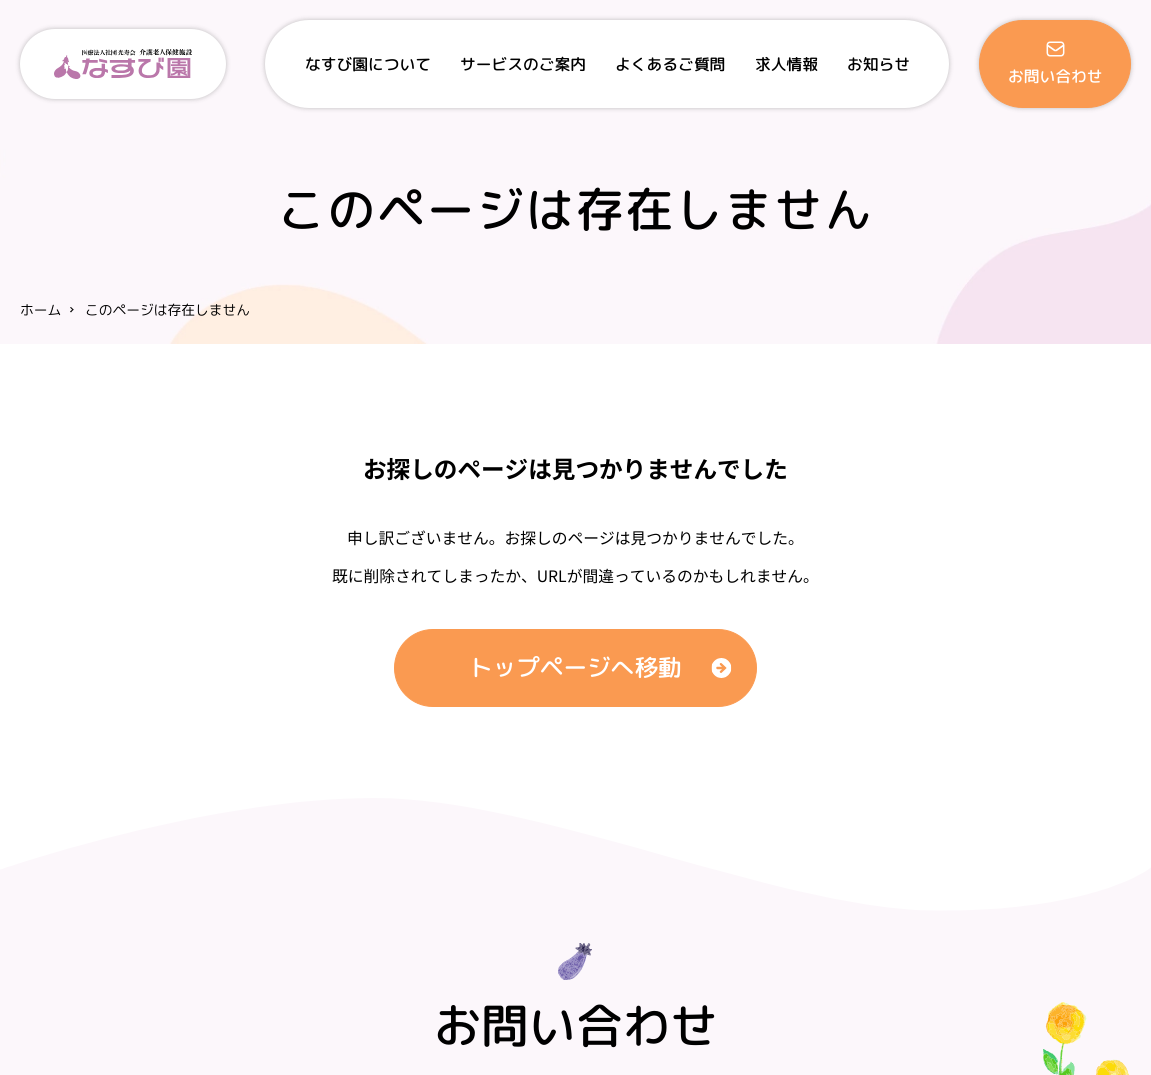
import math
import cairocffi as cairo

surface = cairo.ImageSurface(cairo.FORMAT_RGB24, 1151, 1075)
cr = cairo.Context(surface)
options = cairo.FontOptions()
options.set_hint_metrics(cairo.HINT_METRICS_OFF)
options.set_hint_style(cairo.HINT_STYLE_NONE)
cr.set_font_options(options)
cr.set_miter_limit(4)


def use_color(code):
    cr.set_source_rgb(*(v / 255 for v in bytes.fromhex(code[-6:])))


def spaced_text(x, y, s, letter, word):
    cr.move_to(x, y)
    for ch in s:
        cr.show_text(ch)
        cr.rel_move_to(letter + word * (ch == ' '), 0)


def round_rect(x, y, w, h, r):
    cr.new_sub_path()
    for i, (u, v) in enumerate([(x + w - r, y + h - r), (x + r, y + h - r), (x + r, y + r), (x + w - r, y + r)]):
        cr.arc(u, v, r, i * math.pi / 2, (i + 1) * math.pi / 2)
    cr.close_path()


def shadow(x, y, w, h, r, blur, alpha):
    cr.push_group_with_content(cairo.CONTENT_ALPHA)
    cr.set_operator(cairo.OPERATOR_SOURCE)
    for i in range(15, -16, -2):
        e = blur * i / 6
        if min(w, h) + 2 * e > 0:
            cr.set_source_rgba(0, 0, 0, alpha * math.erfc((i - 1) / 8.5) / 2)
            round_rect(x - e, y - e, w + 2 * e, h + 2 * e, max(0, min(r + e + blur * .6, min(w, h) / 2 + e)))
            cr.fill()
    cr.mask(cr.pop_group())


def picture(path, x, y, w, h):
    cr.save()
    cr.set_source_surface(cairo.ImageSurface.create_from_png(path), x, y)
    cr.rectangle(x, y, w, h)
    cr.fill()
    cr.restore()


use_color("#ffffff")
cr.paint()
picture("img3.png", 0, 0, 1151, 344)
use_color("#000000")
shadow(20, 29, 206, 70, 35, 2.5, 0.25)
use_color("#ffffff")
round_rect(20, 29, 206, 70, 35)
cr.fill()
picture("img1.png", 54, 49, 138, 30)
use_color("#000000")
shadow(265, 20, 684, 88, 44, 2.5, 0.25)
use_color("#ffffff")
round_rect(265, 20, 684, 88, 44)
cr.fill()
cr.select_font_face("Rounded Mplus 1c Medium")
cr.set_font_size(15.75)
use_color("#000000")
cr.move_to(305, 70)
cr.show_text("なすび園について")
cr.move_to(460, 70)
cr.show_text("サービスのご案内")
cr.move_to(615, 70)
cr.show_text("よくあるご質問")
cr.move_to(755, 70)
cr.show_text("求人情報")
cr.move_to(847, 70)
cr.show_text("お知らせ")
use_color("#000000")
shadow(979, 20, 152, 88, 44, 2.5, 0.25)
use_color("#fa9a51")
round_rect(979.5, 20.5, 151, 87, 43.5)
cr.fill_preserve()
cr.set_line_width(1)
cr.stroke()
picture("img2.png", 1046, 41, 19, 16)
use_color("#ffffff")
cr.move_to(1008, 82)
cr.show_text("お問い合わせ")
cr.set_font_size(47.25)
use_color("#000000")
spaced_text(278, 227, "このページは存在しません", 2.4, 0)
cr.select_font_face("Rounded Mplus 1c")
cr.set_font_size(13.75)
cr.move_to(20, 315)
cr.show_text("ホーム")
cr.new_path()
cr.move_to(71, 307)
cr.line_to(73.5, 309.5)
cr.line_to(73, 310.5)
cr.line_to(70, 307.5)
cr.close_path()
cr.fill()
cr.new_path()
cr.move_to(73, 309)
cr.line_to(73.5, 309.5)
cr.line_to(71, 312.5)
cr.line_to(70, 311.5)
cr.close_path()
cr.fill()
cr.move_to(85, 315)
cr.show_text("このページは存在しません")
cr.select_font_face("Noto Sans JP", cairo.FONT_SLANT_NORMAL, cairo.FONT_WEIGHT_BOLD)
cr.set_font_size(23.6)
cr.move_to(363, 478)
cr.show_text("お探しのページは見つかりませんでした")
cr.select_font_face("Noto Sans JP")
cr.set_font_size(15.75)
cr.move_to(347, 544)
cr.show_text("申し訳ございません。お探しのページは見つかりませんでした。")
cr.move_to(332, 582)
cr.show_text("既に削除されてしまったか、URLが間違っているのかもしれません。")
use_color("#fa9a51")
round_rect(394.5, 629.5, 362, 77, 38.5)
cr.fill_preserve()
cr.stroke()
cr.select_font_face("Rounded Mplus 1c Medium")
cr.set_font_size(23.6)
use_color("#ffffff")
cr.move_to(469, 676)
cr.show_text("トップページへ移動")
picture("img4.png", 711, 658, 21, 20)
use_color("#fcf7fb")
cr.rectangle(0, 776, 1151, 299)
cr.fill()
picture("img5.png", 0, 776, 1151, 135)
picture("img6.png", 558, 943, 34, 37)
cr.set_font_size(47.25)
use_color("#000000")
cr.move_to(434, 1043)
cr.show_text("お問い合わせ")
picture("img7.png", 1043, 1002, 87, 73)
surface.write_to_png("result.png")
